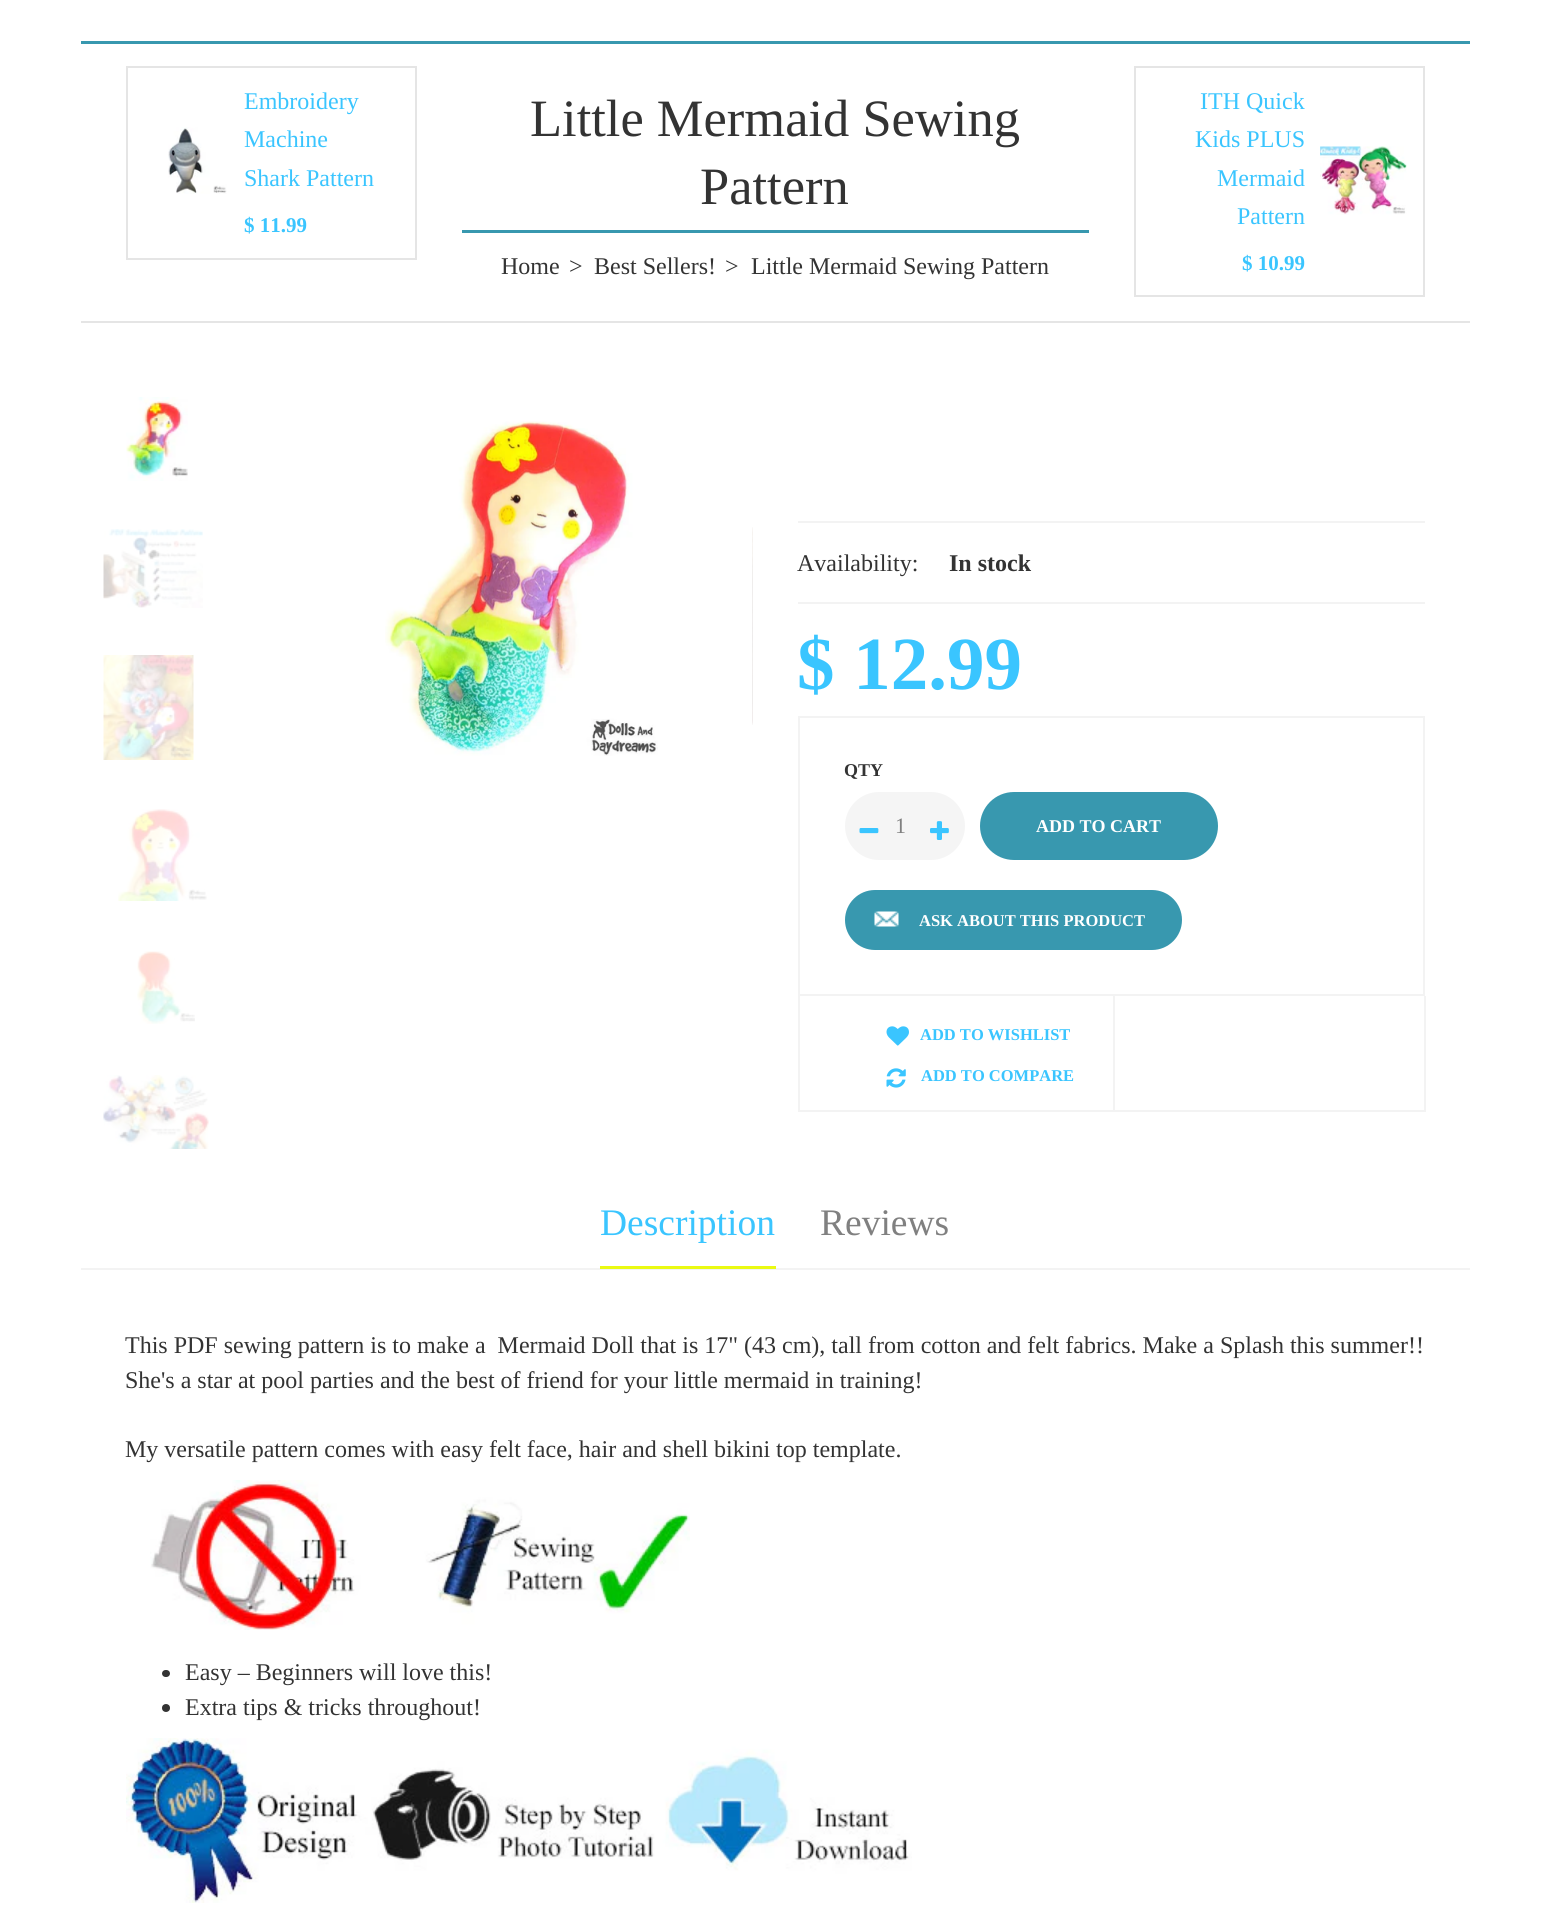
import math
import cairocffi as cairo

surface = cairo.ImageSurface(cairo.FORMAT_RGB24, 1549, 1920)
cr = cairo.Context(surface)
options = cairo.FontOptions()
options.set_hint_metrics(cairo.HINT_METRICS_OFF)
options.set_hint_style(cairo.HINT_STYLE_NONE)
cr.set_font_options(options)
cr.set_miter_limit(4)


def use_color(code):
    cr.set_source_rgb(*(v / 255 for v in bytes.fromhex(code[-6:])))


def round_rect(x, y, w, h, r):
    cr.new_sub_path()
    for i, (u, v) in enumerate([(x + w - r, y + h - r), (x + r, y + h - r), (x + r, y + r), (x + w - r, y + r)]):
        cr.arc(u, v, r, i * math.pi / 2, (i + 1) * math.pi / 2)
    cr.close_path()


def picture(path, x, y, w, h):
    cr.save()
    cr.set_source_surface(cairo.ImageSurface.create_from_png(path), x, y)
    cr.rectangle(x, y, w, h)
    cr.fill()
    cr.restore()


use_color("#ffffff")
cr.paint()
use_color("#3898af")
cr.rectangle(81, 41, 1389, 3)
cr.fill()
use_color("#e5e5e5")
cr.rectangle(81, 321, 1389, 2)
cr.fill()
cr.rectangle(127, 67, 289, 192)
cr.stroke()
picture("img1.png", 168, 127, 59, 67)
cr.select_font_face("Liberation Serif")
cr.set_font_size(24)
use_color("#3ac5ff")
cr.move_to(244, 109)
cr.show_text("Embroidery")
cr.move_to(244, 147)
cr.show_text("Machine")
cr.move_to(244, 186)
cr.show_text("Shark Pattern")
cr.select_font_face("Liberation Serif", cairo.FONT_SLANT_NORMAL, cairo.FONT_WEIGHT_BOLD)
cr.set_font_size(21)
cr.move_to(244, 232)
cr.show_text("$ 11.99")
use_color("#3898af")
cr.rectangle(462, 230, 627, 3)
cr.fill()
cr.select_font_face("Liberation Serif")
cr.set_font_size(52.5)
use_color("#333333")
cr.move_to(530, 136)
cr.show_text("Little Mermaid Sewing")
cr.move_to(700, 204)
cr.show_text("Pattern")
cr.set_font_size(24)
cr.move_to(501, 274)
cr.show_text("Home")
cr.move_to(569, 274)
cr.show_text(">")
cr.move_to(594, 274)
cr.show_text("Best Sellers!")
cr.move_to(725, 274)
cr.show_text(">")
cr.move_to(751, 274)
cr.show_text("Little Mermaid Sewing Pattern")
cr.rectangle(1135, 67, 289, 229)
use_color("#e5e5e5")
cr.stroke()
use_color("#3ac5ff")
cr.move_to(1200, 109)
cr.show_text("ITH Quick")
cr.move_to(1195, 147)
cr.show_text("Kids PLUS")
cr.move_to(1217, 186)
cr.show_text("Mermaid")
cr.move_to(1237, 224)
cr.show_text("Pattern")
cr.select_font_face("Liberation Serif", cairo.FONT_SLANT_NORMAL, cairo.FONT_WEIGHT_BOLD)
cr.set_font_size(21)
cr.move_to(1242, 270)
cr.show_text("$ 10.99")
picture("img2.png", 1320, 146, 87, 69)
picture("img3.png", 126, 397, 62, 84)
picture("img4.png", 103, 529, 100, 79)
picture("img5.png", 103, 655, 91, 105)
picture("img6.png", 118, 809, 89, 92)
picture("img7.png", 137, 951, 58, 73)
picture("img8.png", 103, 1075, 106, 74)
picture("img9.png", 385, 421, 273, 335)
picture("img10.png", 752, 527, 1, 198)
use_color("#f3f3f3")
cr.rectangle(798, 521, 627, 2)
cr.fill()
cr.rectangle(798, 602, 627, 2)
cr.fill()
cr.select_font_face("Liberation Serif")
cr.set_font_size(24)
use_color("#333333")
cr.move_to(797, 571)
cr.show_text("Availability:")
cr.select_font_face("Liberation Serif", cairo.FONT_SLANT_NORMAL, cairo.FONT_WEIGHT_BOLD)
cr.move_to(949, 571)
cr.show_text("In stock")
cr.set_font_size(75)
use_color("#3ac5ff")
cr.move_to(797, 689)
cr.show_text("$ 12.99")
cr.rectangle(799, 717, 625, 278)
use_color("#f3f3f3")
cr.stroke()
cr.set_font_size(18)
use_color("#333333")
cr.move_to(844, 776)
cr.show_text("QTY")
use_color("#f5f5f5")
round_rect(845, 792, 120, 68, 34)
cr.fill()
picture("img11.png", 859, 828, 20, 6)
cr.select_font_face("Liberation Serif")
cr.set_font_size(22)
use_color("#808080")
cr.move_to(895, 833)
cr.show_text("1")
picture("img12.png", 930, 821, 19, 19)
use_color("#3898af")
round_rect(980, 792, 238, 68, 34)
cr.fill()
cr.select_font_face("Liberation Serif", cairo.FONT_SLANT_NORMAL, cairo.FONT_WEIGHT_BOLD)
cr.set_font_size(18)
use_color("#ffffff")
cr.move_to(1036, 832)
cr.show_text("ADD TO CART")
use_color("#3898af")
round_rect(845, 890, 337, 60, 30)
cr.fill()
picture("img13.png", 874, 911, 25, 16)
cr.set_font_size(16.5)
use_color("#ffffff")
cr.move_to(919, 926)
cr.show_text("ASK ABOUT THIS PRODUCT")
use_color("#f3f3f3")
cr.rectangle(1424, 996, 2, 116)
cr.fill()
cr.rectangle(798, 1110, 627, 2)
cr.fill()
cr.rectangle(798, 996, 2, 116)
cr.fill()
cr.rectangle(1113, 996, 2, 114)
cr.fill()
picture("img14.png", 886, 1026, 23, 20)
use_color("#3ac5ff")
cr.move_to(920, 1040)
cr.show_text("ADD TO WISHLIST")
picture("img15.png", 886, 1068, 20, 20)
cr.move_to(921, 1081)
cr.show_text("ADD TO COMPARE")
cr.select_font_face("Liberation Serif")
cr.set_font_size(37.5)
cr.move_to(600, 1235)
cr.show_text("Description")
use_color("#f3f3f3")
cr.rectangle(81, 1268, 1389, 2)
cr.fill()
use_color("#eafa12")
cr.rectangle(600, 1266, 176, 3)
cr.fill()
use_color("#808080")
cr.move_to(820, 1235)
cr.show_text("Reviews")
cr.set_font_size(24)
use_color("#333333")
cr.move_to(125, 1353)
cr.show_text("This PDF sewing pattern is to make a  Mermaid Doll that is 17\" (43 cm), tall from cotton and felt fabrics. Make a Splash this summer!!")
cr.move_to(125, 1388)
cr.show_text("She's a star at pool parties and the best of friend for your little mermaid in training!")
cr.move_to(125, 1457)
cr.show_text("My versatile pattern comes with easy felt face, hair and shell bikini top template.")
picture("img16.png", 150, 1480, 540, 150)
round_rect(162, 1670, 8, 7, 3.5)
cr.fill()
cr.move_to(185, 1680)
cr.show_text("Easy – Beginners will love this!")
cr.new_path()
cr.arc(166, 1708, 4, 0, 2 * math.pi)
cr.fill()
cr.move_to(185, 1715)
cr.show_text("Extra tips & tricks throughout!")
picture("img17.png", 126, 1738, 786, 165)
surface.write_to_png("result.png")
